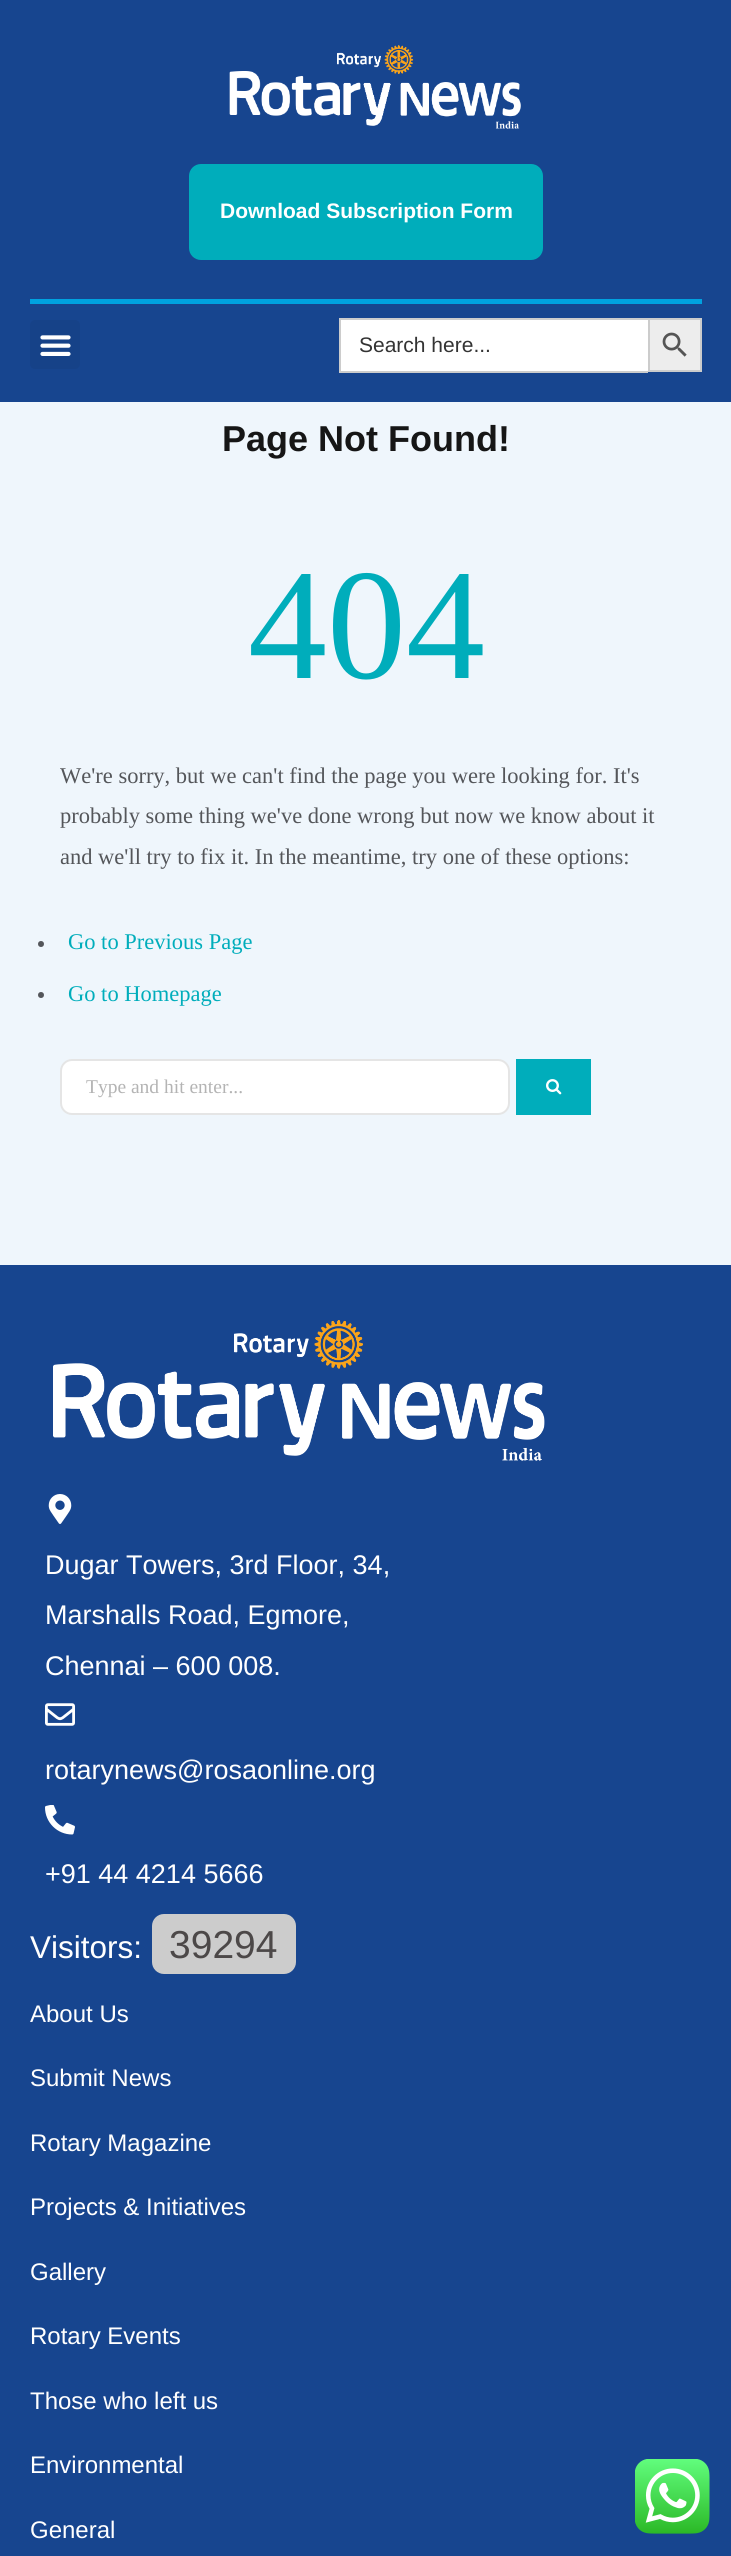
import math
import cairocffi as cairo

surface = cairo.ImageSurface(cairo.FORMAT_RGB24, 731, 2556)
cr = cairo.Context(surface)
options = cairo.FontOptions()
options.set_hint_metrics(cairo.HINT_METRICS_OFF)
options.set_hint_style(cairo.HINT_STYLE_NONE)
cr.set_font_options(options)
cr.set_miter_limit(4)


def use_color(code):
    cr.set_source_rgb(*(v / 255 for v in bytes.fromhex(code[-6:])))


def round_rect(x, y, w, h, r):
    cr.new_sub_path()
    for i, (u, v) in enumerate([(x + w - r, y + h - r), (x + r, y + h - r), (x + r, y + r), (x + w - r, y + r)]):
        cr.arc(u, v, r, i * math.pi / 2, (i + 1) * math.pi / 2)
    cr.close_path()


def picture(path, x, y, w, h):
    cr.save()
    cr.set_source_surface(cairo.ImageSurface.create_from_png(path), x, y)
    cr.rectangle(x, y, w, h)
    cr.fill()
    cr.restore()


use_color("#eff6fc")
cr.paint()
use_color("#17458f")
cr.rectangle(0, 0, 731, 402)
cr.fill()
picture("img1.png", 229, 45, 292, 84)
use_color("#00adbb")
round_rect(189, 164, 354, 96, 12)
cr.fill()
cr.select_font_face("Liberation Sans", cairo.FONT_SLANT_NORMAL, cairo.FONT_WEIGHT_BOLD)
cr.set_font_size(21)
use_color("#ffffff")
cr.move_to(220, 218)
cr.show_text("Download Subscription Form")
use_color("#00a2e0")
cr.rectangle(30, 299, 672, 5)
cr.fill()
use_color("#164288")
round_rect(30, 320, 50, 49, 5)
cr.fill()
picture("img2.png", 40, 335, 31, 21)
use_color("#ffffff")
cr.rectangle(341, 320, 307, 51)
cr.fill()
use_color("#cccccc")
cr.rectangle(339, 318, 309, 2)
cr.fill()
cr.rectangle(339, 371, 309, 2)
cr.fill()
cr.rectangle(339, 318, 2, 54)
cr.fill()
cr.select_font_face("Liberation Sans")
use_color("#333333")
cr.move_to(359, 352)
cr.show_text("Search here...")
use_color("#ededed")
cr.rectangle(649, 319, 52, 52)
cr.fill_preserve()
use_color("#cccccc")
cr.stroke()
picture("img3.png", 662, 332, 25, 25)
cr.select_font_face("Liberation Sans", cairo.FONT_SLANT_NORMAL, cairo.FONT_WEIGHT_BOLD)
cr.set_font_size(36)
use_color("#161616")
cr.move_to(222, 451)
cr.show_text("Page Not Found!")
cr.select_font_face("Liberation Serif")
cr.set_font_size(158)
use_color("#00adbb")
cr.move_to(248, 678)
cr.show_text("404")
cr.set_font_size(22.5)
use_color("#54565a")
cr.move_to(60, 783)
cr.show_text("We're sorry, but we can't find the page you were looking for. It's")
cr.move_to(60, 823)
cr.show_text("probably some thing we've done wrong but now we know about it")
cr.move_to(60, 864)
cr.show_text("and we'll try to fix it. In the meantime, try one of these options:")
cr.new_path()
cr.arc(41, 944, 3, 0, 2 * math.pi)
cr.fill()
use_color("#00adbb")
cr.move_to(68, 949)
cr.show_text("Go to Previous Page")
use_color("#54565a")
cr.new_path()
cr.arc(41, 995, 3, 0, 2 * math.pi)
cr.fill()
use_color("#00adbb")
cr.move_to(68, 1001)
cr.show_text("Go to Homepage")
use_color("#ffffff")
round_rect(61, 1060, 448, 54, 11)
cr.fill_preserve()
use_color("#e5e5e5")
cr.stroke()
cr.save()
cr.rectangle(86, 1076, 393, 24)
cr.clip()
cr.set_font_size(19.5)
use_color("#b4b4b4")
cr.move_to(86, 1093)
cr.show_text("Type and hit enter...")
cr.restore()
use_color("#00adbb")
cr.rectangle(516, 1059, 75, 56)
cr.fill()
picture("img4.png", 546, 1079, 16, 16)
use_color("#17458f")
cr.rectangle(0, 1265, 731, 1291)
cr.fill()
picture("img5.png", 53, 1320, 492, 141)
picture("img6.png", 48, 1494, 24, 30)
cr.select_font_face("Liberation Sans")
cr.set_font_size(27)
use_color("#ffffff")
cr.move_to(45, 1574)
cr.show_text("Dugar Towers, 3rd Floor, 34,")
cr.move_to(45, 1624)
cr.show_text("Marshalls Road, Egmore,")
cr.move_to(45, 1675)
cr.show_text("Chennai – 600 008.")
picture("img7.png", 45, 1703, 30, 23)
cr.move_to(45, 1779)
cr.show_text("rotarynews@rosaonline.org")
picture("img8.png", 45, 1805, 30, 30)
cr.move_to(45, 1883)
cr.show_text("+91 44 4214 5666")
cr.set_font_size(31.5)
cr.move_to(30, 1958)
cr.show_text("Visitors:")
use_color("#cccccc")
round_rect(152, 1914, 144, 60, 12)
cr.fill()
cr.set_font_size(39)
use_color("#4c4848")
cr.move_to(169, 1958)
cr.show_text("39294")
cr.set_font_size(24)
use_color("#ffffff")
cr.move_to(30, 2022)
cr.show_text("About Us")
cr.move_to(30, 2086)
cr.show_text("Submit News")
cr.move_to(30, 2151)
cr.show_text("Rotary Magazine")
cr.move_to(30, 2215)
cr.show_text("Projects & Initiatives")
cr.move_to(30, 2280)
cr.show_text("Gallery")
cr.move_to(30, 2344)
cr.show_text("Rotary Events")
cr.move_to(30, 2409)
cr.show_text("Those who left us")
cr.move_to(30, 2473)
cr.show_text("Environmental")
cr.move_to(30, 2538)
cr.show_text("General")
picture("img9.png", 635, 2459, 75, 75)
surface.write_to_png("result.png")
